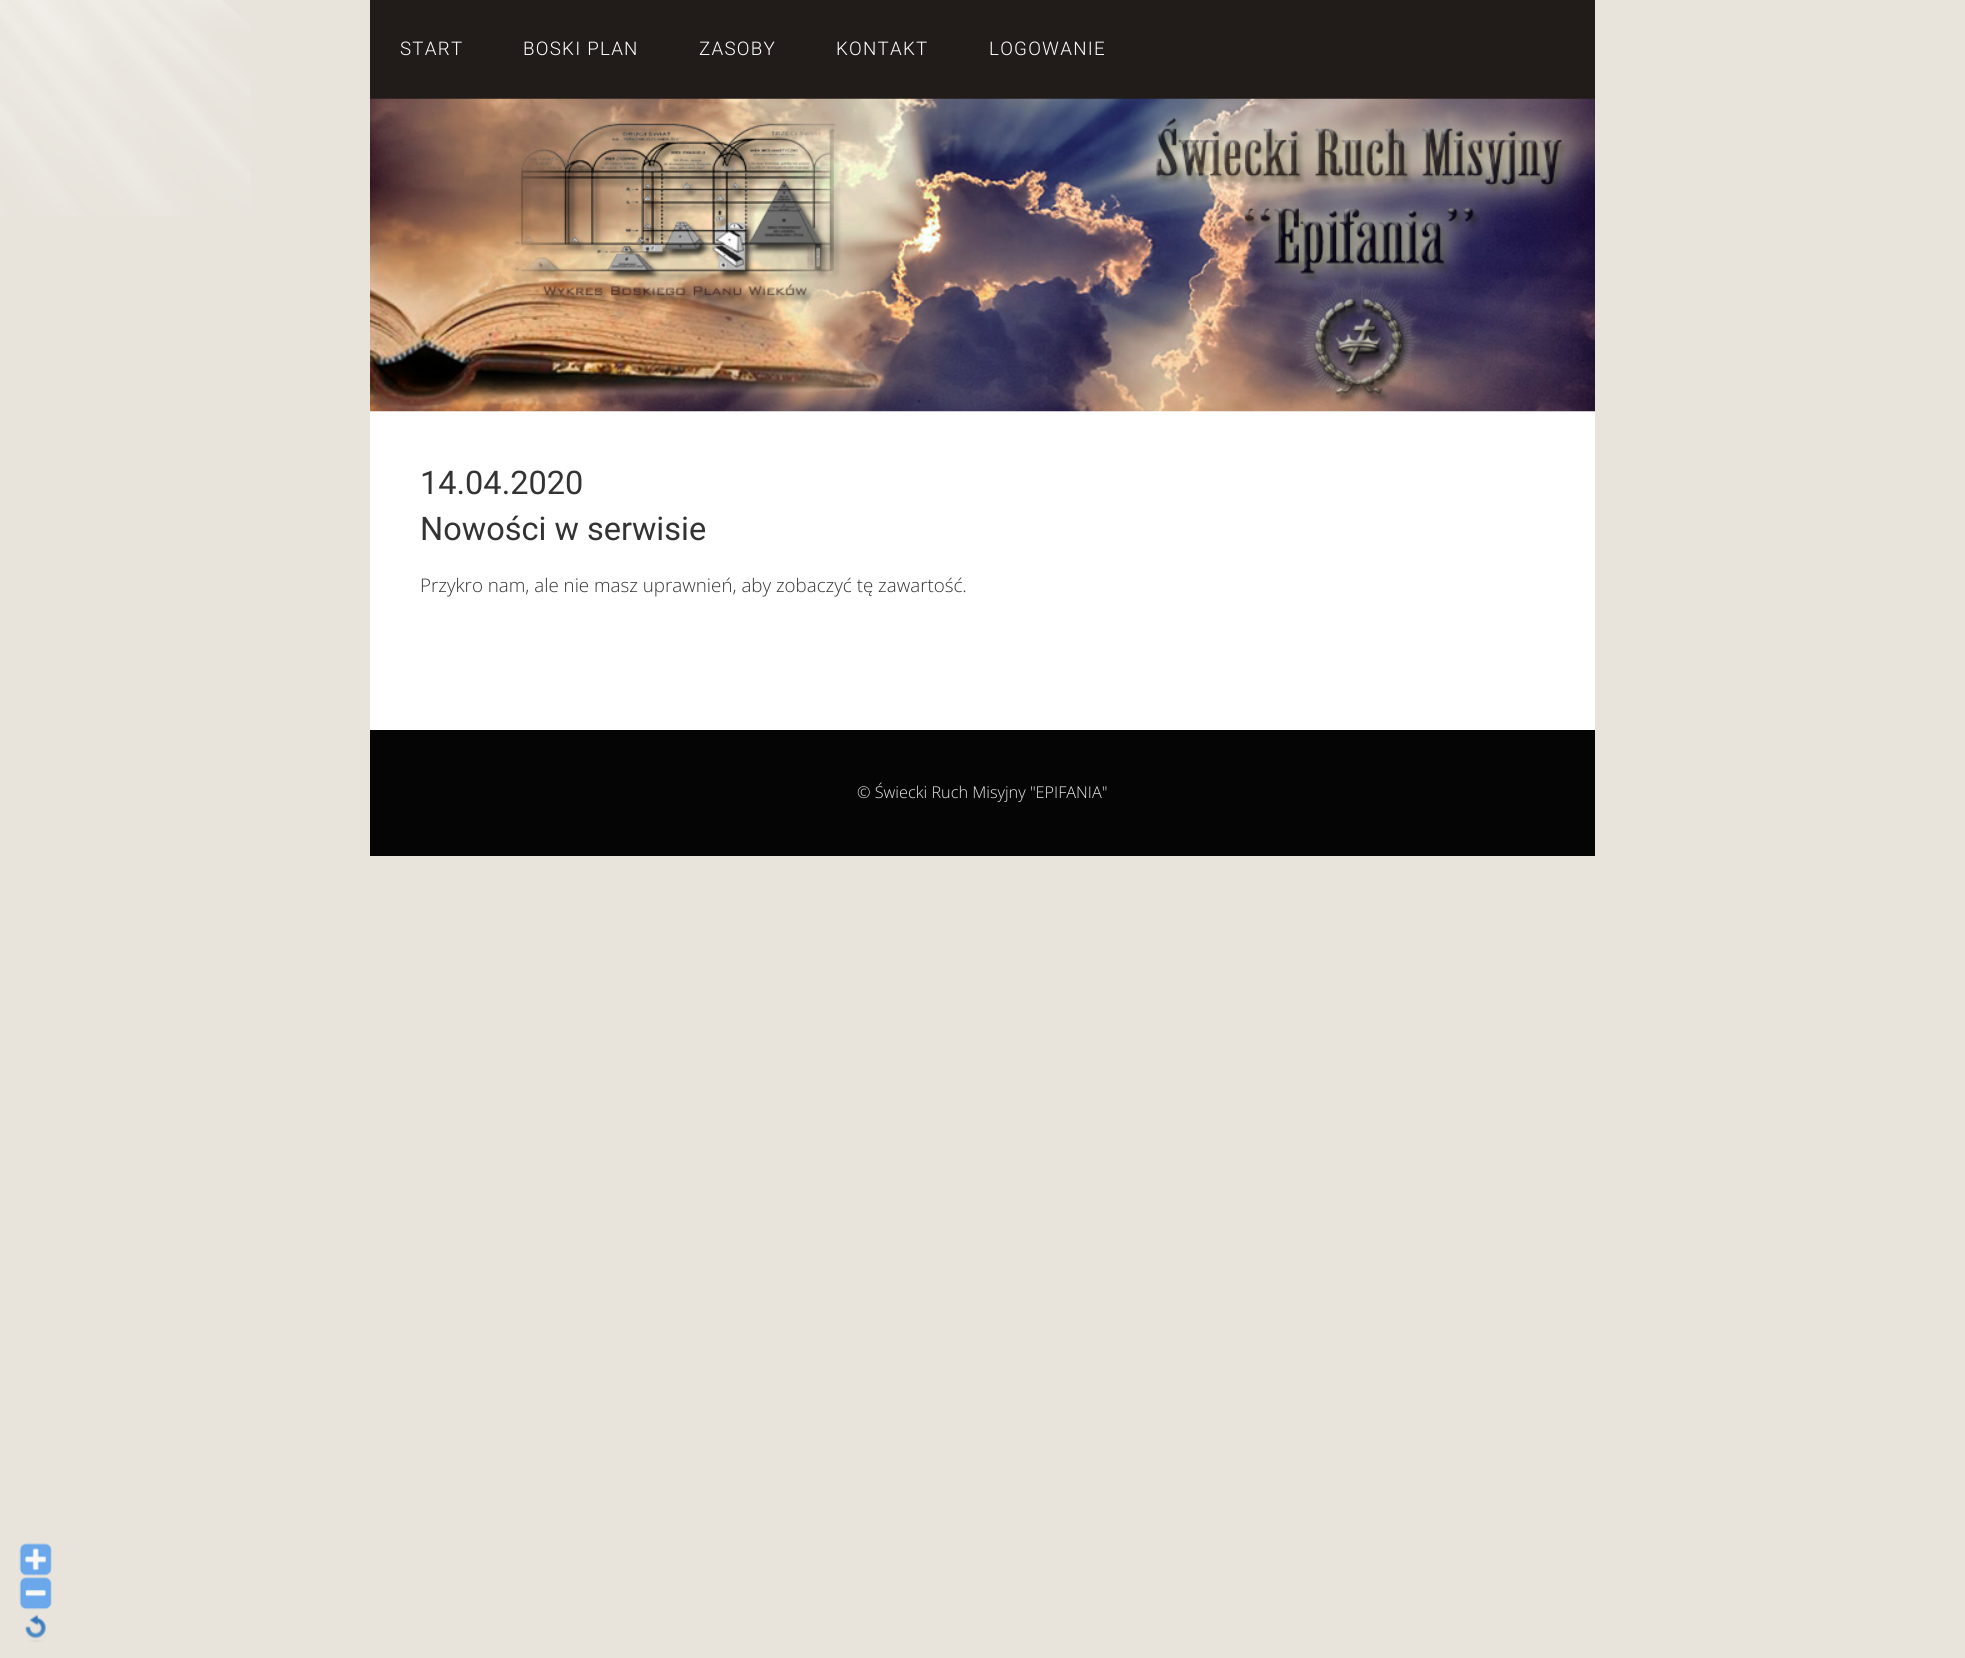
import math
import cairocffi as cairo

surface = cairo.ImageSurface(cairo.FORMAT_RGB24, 1965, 1658)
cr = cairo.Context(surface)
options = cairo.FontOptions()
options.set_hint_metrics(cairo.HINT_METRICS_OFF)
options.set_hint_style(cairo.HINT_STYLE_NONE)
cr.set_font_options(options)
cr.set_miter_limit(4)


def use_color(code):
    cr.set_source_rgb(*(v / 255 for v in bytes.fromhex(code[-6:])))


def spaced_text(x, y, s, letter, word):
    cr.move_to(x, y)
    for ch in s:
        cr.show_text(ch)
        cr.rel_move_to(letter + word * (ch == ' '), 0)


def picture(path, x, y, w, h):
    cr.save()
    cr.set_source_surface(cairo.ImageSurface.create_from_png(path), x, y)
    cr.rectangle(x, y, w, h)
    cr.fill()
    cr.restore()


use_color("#e8e4dc")
cr.paint()
picture("img1.png", 0, 0, 251, 216)
use_color("#211b1a")
cr.rectangle(370, 0, 1225, 99)
cr.fill()
cr.select_font_face("Roboto Light")
cr.set_font_size(18.75)
use_color("#ffffff")
spaced_text(400, 55, "START", 1.25, 0)
spaced_text(523, 55, "BOSKI PLAN", 1.25, 0)
spaced_text(699, 55, "ZASOBY", 1.25, 0)
spaced_text(836, 55, "KONTAKT", 1.25, 0)
spaced_text(989, 55, "LOGOWANIE", 1.25, 0)
cr.rectangle(370, 411, 1225, 319)
cr.fill()
picture("img2.png", 370, 98, 1225, 314)
cr.select_font_face("Roboto")
cr.set_font_size(32.5)
use_color("#333333")
cr.move_to(420, 494)
cr.show_text("14.04.2020")
cr.move_to(420, 540)
cr.show_text("Nowości w serwisie")
cr.select_font_face("Open Sans Light")
cr.set_font_size(18.75)
cr.move_to(420, 592)
cr.show_text("Przykro nam, ale nie masz uprawnień, aby zobaczyć tę zawartość.")
use_color("#050505")
cr.rectangle(370, 730, 1225, 126)
cr.fill()
cr.set_font_size(16.25)
use_color("#eaeaea")
cr.move_to(857, 798)
cr.show_text("© Świecki Ruch Misyjny \"EPIFANIA\"")
picture("img3.png", 19, 1543, 33, 33)
picture("img4.png", 19, 1577, 33, 33)
picture("img5.png", 25, 1614, 21, 28)
surface.write_to_png("result.png")
